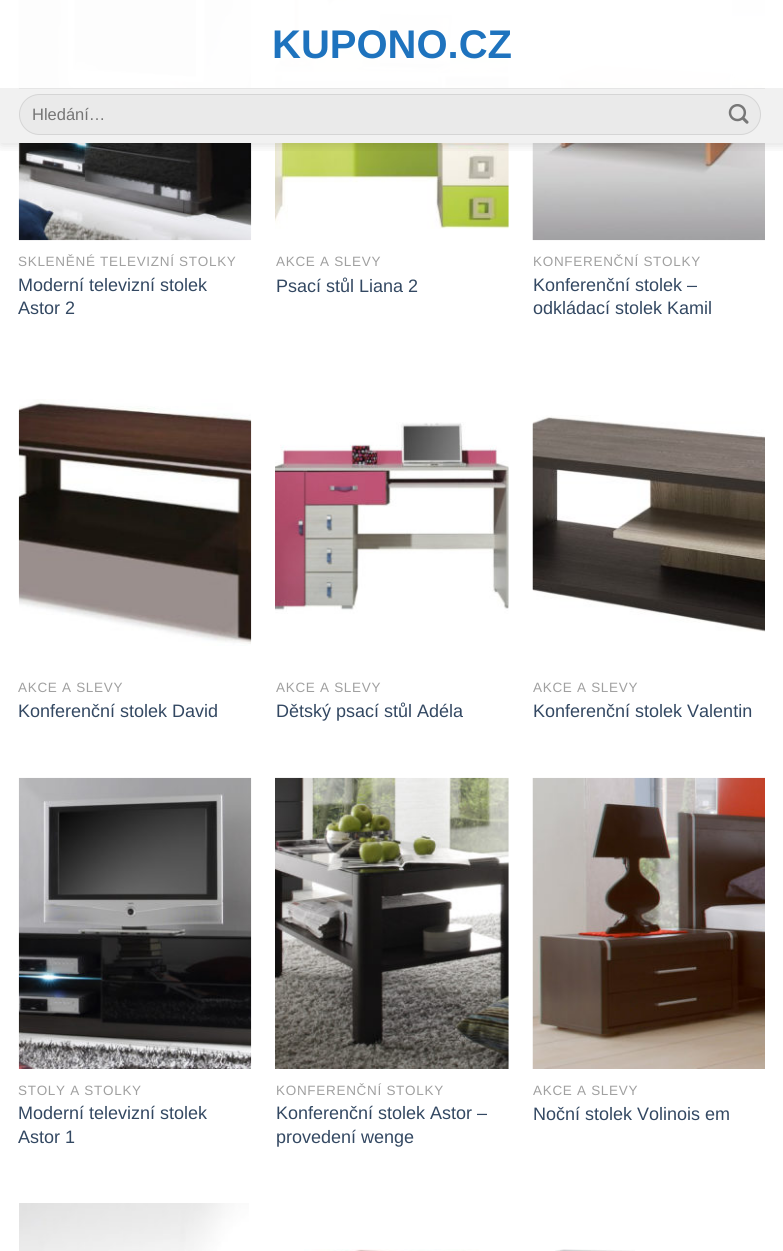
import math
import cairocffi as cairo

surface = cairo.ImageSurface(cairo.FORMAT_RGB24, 783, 1251)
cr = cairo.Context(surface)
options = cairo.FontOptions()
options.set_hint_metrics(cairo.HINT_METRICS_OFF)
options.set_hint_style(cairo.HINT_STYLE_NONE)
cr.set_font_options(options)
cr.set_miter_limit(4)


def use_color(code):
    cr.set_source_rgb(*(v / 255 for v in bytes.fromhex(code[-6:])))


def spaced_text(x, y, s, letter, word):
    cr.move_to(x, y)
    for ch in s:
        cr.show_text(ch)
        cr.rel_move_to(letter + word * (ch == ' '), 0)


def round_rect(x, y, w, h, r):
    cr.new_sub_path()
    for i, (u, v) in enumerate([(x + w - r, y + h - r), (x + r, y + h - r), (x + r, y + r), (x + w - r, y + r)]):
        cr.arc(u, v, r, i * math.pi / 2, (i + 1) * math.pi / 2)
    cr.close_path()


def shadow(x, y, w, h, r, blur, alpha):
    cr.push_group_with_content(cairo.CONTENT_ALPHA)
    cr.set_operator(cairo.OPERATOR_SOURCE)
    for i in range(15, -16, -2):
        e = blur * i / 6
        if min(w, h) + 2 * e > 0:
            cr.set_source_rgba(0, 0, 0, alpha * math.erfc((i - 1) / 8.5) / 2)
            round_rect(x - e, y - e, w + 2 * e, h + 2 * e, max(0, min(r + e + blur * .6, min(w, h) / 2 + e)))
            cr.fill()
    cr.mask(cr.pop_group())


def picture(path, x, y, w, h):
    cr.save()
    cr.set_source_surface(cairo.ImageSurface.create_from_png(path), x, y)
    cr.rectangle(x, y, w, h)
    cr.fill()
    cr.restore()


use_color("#ffffff")
cr.paint()
picture("img2.png", 18, 0, 234, 241)
picture("img3.png", 275, 0, 234, 229)
picture("img4.png", 532, 0, 233, 241)
cr.save()
cr.rectangle(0, 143, 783, 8)
cr.clip()
use_color("#000000")
shadow(1, 1, 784, 143, 0, 6, 0.15)
cr.restore()
cr.set_source_rgba(1, 1, 1, 0.9)
cr.rectangle(18, 0, 747, 88)
cr.fill()
cr.rectangle(19, 0, 713, 88)
cr.fill()
cr.select_font_face("Liberation Sans", cairo.FONT_SLANT_NORMAL, cairo.FONT_WEIGHT_BOLD)
cr.set_font_size(40)
use_color("#1e73be")
cr.move_to(272, 58)
cr.show_text("KUPONO.CZ")
use_color("#f1f1f1")
cr.rectangle(0, 88, 783, 55)
cr.fill()
use_color("#e5e5e5")
cr.rectangle(19, 88, 746, 1)
cr.fill()
use_color("#eaeaea")
round_rect(19, 94, 742, 41, 20.5)
cr.fill()
round_rect(19.5, 94.5, 741, 40, 20)
cr.set_source_rgba(0, 0, 0, 0.09)
cr.set_line_width(1)
cr.stroke()
cr.select_font_face("Liberation Sans")
cr.set_font_size(16.5)
use_color("#757575")
cr.move_to(32, 120)
cr.show_text("Hledání…")
picture("img1.png", 728, 104, 21, 20)
cr.set_font_size(13.5)
use_color("#a0a0a0")
spaced_text(18, 266, "SKLENĚNÉ TELEVIZNÍ STOLKY", 0.7, 0)
cr.set_font_size(18)
use_color("#334862")
cr.move_to(18, 291)
cr.show_text("Moderní televizní stolek")
cr.move_to(18, 314)
cr.show_text("Astor 2")
cr.set_font_size(13.5)
use_color("#a0a0a0")
spaced_text(276, 266, "AKCE A SLEVY", 0.7, 0)
cr.set_font_size(18)
use_color("#334862")
cr.move_to(276, 292)
cr.show_text("Psací stůl Liana 2")
cr.set_font_size(13.5)
use_color("#a0a0a0")
spaced_text(533, 266, "KONFERENČNÍ STOLKY", 0.7, 0)
cr.set_font_size(18)
use_color("#334862")
cr.move_to(533, 291)
cr.show_text("Konferenční stolek –")
cr.move_to(533, 314)
cr.show_text("odkládací stolek Kamil")
picture("img5.png", 18, 399, 234, 247)
cr.set_font_size(13.5)
use_color("#a0a0a0")
spaced_text(18, 692, "AKCE A SLEVY", 0.7, 0)
cr.set_font_size(18)
use_color("#334862")
cr.move_to(18, 717)
cr.show_text("Konferenční stolek David")
picture("img6.png", 275, 422, 234, 192)
cr.set_font_size(13.5)
use_color("#a0a0a0")
spaced_text(276, 692, "AKCE A SLEVY", 0.7, 0)
cr.set_font_size(18)
use_color("#334862")
cr.move_to(276, 717)
cr.show_text("Dětský psací stůl Adéla")
picture("img7.png", 532, 415, 233, 217)
cr.set_font_size(13.5)
use_color("#a0a0a0")
spaced_text(533, 692, "AKCE A SLEVY", 0.7, 0)
cr.set_font_size(18)
use_color("#334862")
cr.move_to(533, 717)
cr.show_text("Konferenční stolek Valentin")
picture("img8.png", 18, 777, 234, 292)
cr.set_font_size(13.5)
use_color("#a0a0a0")
spaced_text(18, 1095, "STOLY A STOLKY", 0.7, 0)
cr.set_font_size(18)
use_color("#334862")
cr.move_to(18, 1119)
cr.show_text("Moderní televizní stolek")
cr.move_to(18, 1143)
cr.show_text("Astor 1")
picture("img9.png", 275, 777, 234, 292)
cr.set_font_size(13.5)
use_color("#a0a0a0")
spaced_text(276, 1095, "KONFERENČNÍ STOLKY", 0.7, 0)
cr.set_font_size(18)
use_color("#334862")
cr.move_to(276, 1119)
cr.show_text("Konferenční stolek Astor –")
cr.move_to(276, 1143)
cr.show_text("provedení wenge")
picture("img10.png", 532, 777, 233, 292)
cr.set_font_size(13.5)
use_color("#a0a0a0")
spaced_text(533, 1095, "AKCE A SLEVY", 0.7, 0)
cr.set_font_size(18)
use_color("#334862")
cr.move_to(533, 1120)
cr.show_text("Noční stolek Volinois em")
picture("img11.png", 19, 1203, 230, 48)
picture("img12.png", 304, 1249, 175, 2)
picture("img13.png", 555, 1249, 80, 2)
surface.write_to_png("result.png")
